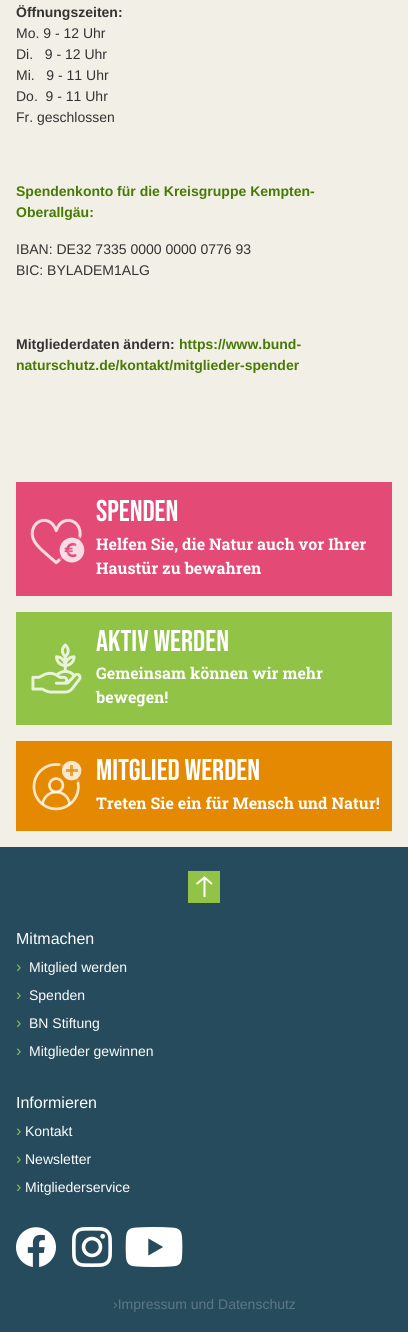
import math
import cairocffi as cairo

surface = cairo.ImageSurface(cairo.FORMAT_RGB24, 408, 1332)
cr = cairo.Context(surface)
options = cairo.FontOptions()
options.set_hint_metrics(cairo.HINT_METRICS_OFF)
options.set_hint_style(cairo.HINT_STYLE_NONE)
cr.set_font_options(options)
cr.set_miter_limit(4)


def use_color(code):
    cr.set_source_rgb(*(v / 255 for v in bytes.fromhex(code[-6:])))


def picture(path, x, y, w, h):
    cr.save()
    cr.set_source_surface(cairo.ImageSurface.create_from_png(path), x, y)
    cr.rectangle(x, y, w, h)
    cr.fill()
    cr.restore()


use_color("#f2efe6")
cr.paint()
cr.select_font_face("Liberation Sans", cairo.FONT_SLANT_NORMAL, cairo.FONT_WEIGHT_BOLD)
cr.set_font_size(14)
use_color("#333333")
cr.move_to(16, 17)
cr.show_text("Öffnungszeiten:")
cr.select_font_face("Liberation Sans")
cr.move_to(16, 38)
cr.show_text("Mo. 9 - 12 Uhr")
cr.move_to(16, 59)
cr.show_text("Di.   9 - 12 Uhr")
cr.move_to(16, 80)
cr.show_text("Mi.   9 - 11 Uhr")
cr.move_to(16, 101)
cr.show_text("Do.  9 - 11 Uhr")
cr.move_to(16, 122)
cr.show_text("Fr. geschlossen")
cr.select_font_face("Liberation Sans", cairo.FONT_SLANT_NORMAL, cairo.FONT_WEIGHT_BOLD)
use_color("#467a03")
cr.move_to(16, 196)
cr.show_text("Spendenkonto für die Kreisgruppe Kempten-")
cr.move_to(16, 217)
cr.show_text("Oberallgäu:")
cr.select_font_face("Liberation Sans")
use_color("#333333")
cr.move_to(16, 254)
cr.show_text("IBAN: DE32 7335 0000 0000 0776 93")
cr.move_to(16, 275)
cr.show_text("BIC: BYLADEM1ALG")
cr.select_font_face("Liberation Sans", cairo.FONT_SLANT_NORMAL, cairo.FONT_WEIGHT_BOLD)
cr.move_to(16, 349)
cr.show_text("Mitgliederdaten ändern:")
use_color("#467a03")
cr.move_to(179, 349)
cr.show_text("https://www.bund-")
cr.move_to(16, 370)
cr.show_text("naturschutz.de/kontakt/mitglieder-spender")
use_color("#e34b76")
cr.rectangle(16, 482, 376, 114)
cr.fill()
picture("img1.png", 30, 518, 55, 47)
cr.select_font_face("Bebas Neue")
cr.set_font_size(30)
use_color("#ffffff")
cr.move_to(96, 521)
cr.show_text("SPENDEN")
cr.select_font_face("Roboto Slab", cairo.FONT_SLANT_NORMAL, cairo.FONT_WEIGHT_BOLD)
cr.set_font_size(16)
cr.move_to(96, 550)
cr.show_text("Helfen Sie, die Natur auch vor Ihrer")
cr.move_to(96, 574)
cr.show_text("Haustür zu bewahren")
use_color("#90c346")
cr.rectangle(16, 612, 376, 113)
cr.fill()
picture("img2.png", 31, 643, 51, 51)
cr.select_font_face("Bebas Neue")
cr.set_font_size(30)
use_color("#ffffff")
cr.move_to(96, 651)
cr.show_text("AKTIV WERDEN")
cr.select_font_face("Roboto Slab", cairo.FONT_SLANT_NORMAL, cairo.FONT_WEIGHT_BOLD)
cr.set_font_size(16)
cr.move_to(96, 679)
cr.show_text("Gemeinsam können wir mehr")
cr.move_to(96, 703)
cr.show_text("bewegen!")
use_color("#e48901")
cr.rectangle(16, 741, 376, 90)
cr.fill()
picture("img3.png", 32, 760, 50, 51)
cr.select_font_face("Bebas Neue")
cr.set_font_size(30)
use_color("#ffffff")
cr.move_to(96, 780)
cr.show_text("MITGLIED WERDEN")
cr.select_font_face("Roboto Slab", cairo.FONT_SLANT_NORMAL, cairo.FONT_WEIGHT_BOLD)
cr.set_font_size(16)
cr.move_to(96, 809)
cr.show_text("Treten Sie ein für Mensch und Natur!")
use_color("#254b5c")
cr.rectangle(0, 847, 408, 485)
cr.fill()
use_color("#90c346")
cr.rectangle(188, 871, 32, 32)
cr.fill()
cr.new_path()
cr.move_to(204.5, 897)
cr.line_to(204.5, 877)
cr.move_to(196.5, 884)
cr.line_to(204.5, 877.5)
cr.line_to(212, 884)
use_color("#ffffff")
cr.stroke()
cr.select_font_face("Liberation Sans")
cr.move_to(16, 944)
cr.show_text("Mitmachen")
use_color("#90c346")
cr.move_to(16, 972)
cr.show_text("›")
cr.set_font_size(14)
use_color("#ffffff")
cr.move_to(29, 972)
cr.show_text("Mitglied werden")
cr.set_font_size(16)
use_color("#90c346")
cr.move_to(16, 1000)
cr.show_text("›")
cr.set_font_size(14)
use_color("#ffffff")
cr.move_to(29, 1000)
cr.show_text("Spenden")
cr.set_font_size(16)
use_color("#90c346")
cr.move_to(16, 1028)
cr.show_text("›")
cr.set_font_size(14)
use_color("#ffffff")
cr.move_to(29, 1028)
cr.show_text("BN Stiftung")
cr.set_font_size(16)
use_color("#90c346")
cr.move_to(16, 1056)
cr.show_text("›")
cr.set_font_size(14)
use_color("#ffffff")
cr.move_to(29, 1056)
cr.show_text("Mitglieder gewinnen")
cr.set_font_size(16)
cr.move_to(16, 1108)
cr.show_text("Informieren")
use_color("#90c346")
cr.move_to(16, 1136)
cr.show_text("›")
cr.set_font_size(14)
use_color("#ffffff")
cr.move_to(25, 1136)
cr.show_text("Kontakt")
cr.set_font_size(16)
use_color("#90c346")
cr.move_to(16, 1164)
cr.show_text("›")
cr.set_font_size(14)
use_color("#ffffff")
cr.move_to(25, 1164)
cr.show_text("Newsletter")
cr.set_font_size(16)
use_color("#90c346")
cr.move_to(16, 1192)
cr.show_text("›")
cr.set_font_size(14)
use_color("#ffffff")
cr.move_to(25, 1192)
cr.show_text("Mitgliederservice")
picture("img4.png", 16, 1227, 40, 40)
picture("img5.png", 72, 1227, 40, 40)
picture("img6.png", 125, 1227, 58, 40)
use_color("#5c7885")
cr.move_to(113, 1309)
cr.show_text("›Impressum und Datenschutz")
surface.write_to_png("result.png")
